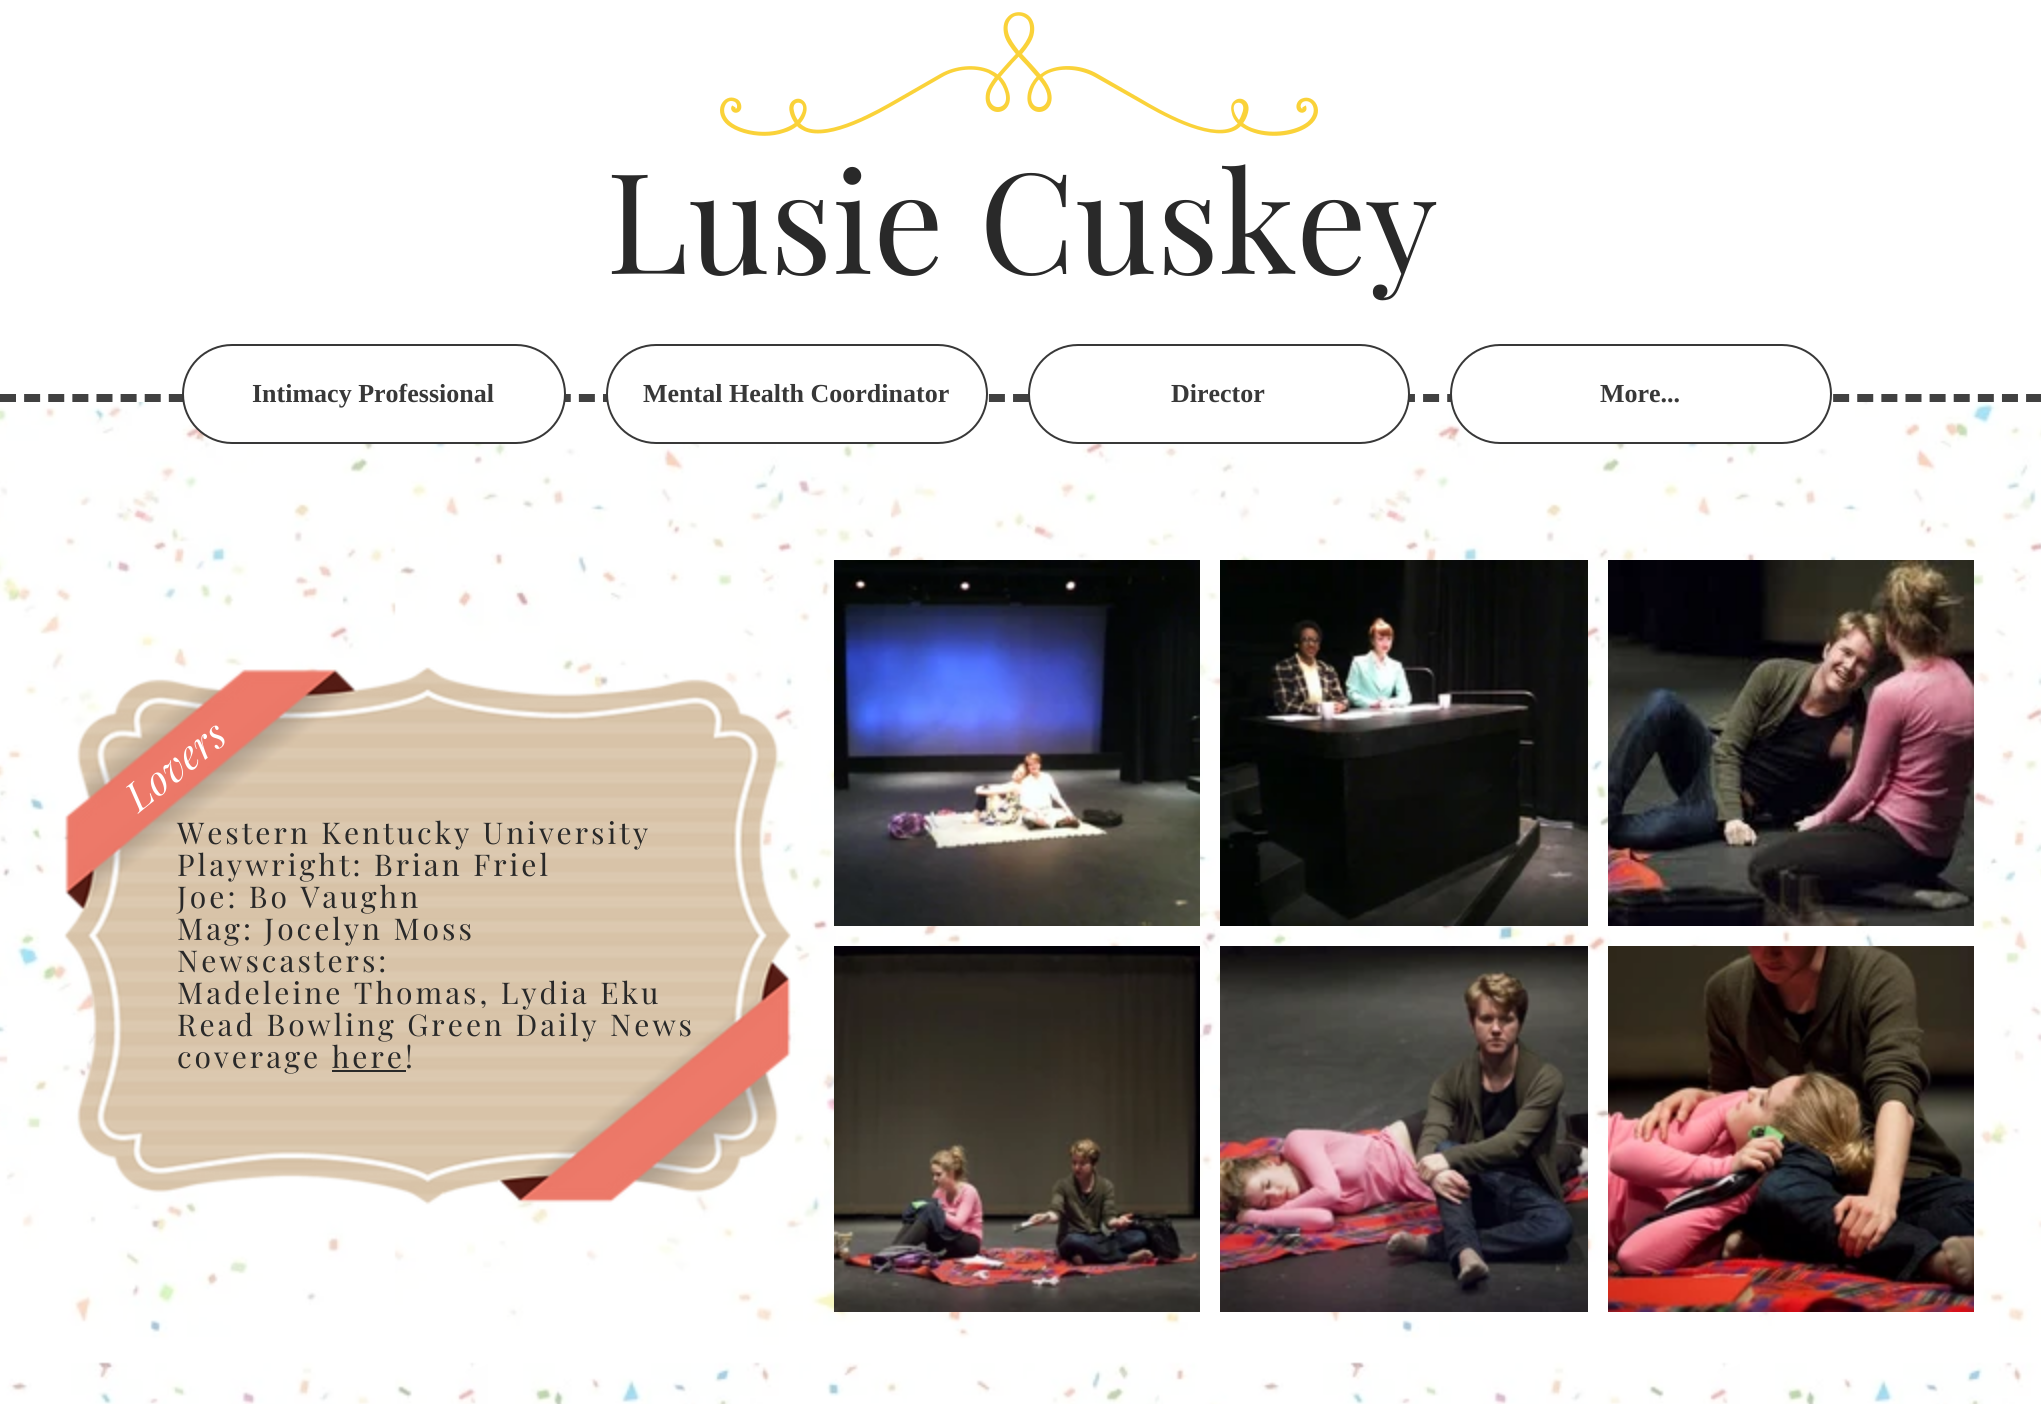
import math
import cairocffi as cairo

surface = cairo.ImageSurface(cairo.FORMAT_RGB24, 2041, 1404)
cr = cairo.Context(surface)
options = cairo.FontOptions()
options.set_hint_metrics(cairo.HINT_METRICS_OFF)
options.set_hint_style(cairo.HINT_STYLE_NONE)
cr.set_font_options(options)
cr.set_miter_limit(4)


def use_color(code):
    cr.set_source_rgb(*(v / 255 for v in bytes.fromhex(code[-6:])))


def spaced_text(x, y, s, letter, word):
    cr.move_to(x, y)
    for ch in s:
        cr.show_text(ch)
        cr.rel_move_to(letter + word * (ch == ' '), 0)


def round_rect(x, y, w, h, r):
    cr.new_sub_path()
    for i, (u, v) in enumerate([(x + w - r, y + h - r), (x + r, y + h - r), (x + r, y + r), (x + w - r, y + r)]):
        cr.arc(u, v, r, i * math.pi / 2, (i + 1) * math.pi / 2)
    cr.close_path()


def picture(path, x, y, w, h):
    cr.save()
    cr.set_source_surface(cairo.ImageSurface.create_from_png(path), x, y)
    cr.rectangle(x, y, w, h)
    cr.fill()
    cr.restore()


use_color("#ffffff")
cr.paint()
picture("img1.png", 720, 12, 598, 124)
cr.select_font_face("Playfair Display")
cr.set_font_size(140)
use_color("#292929")
cr.move_to(606, 274)
cr.show_text("Lusie Cuskey")
cr.new_path()
cr.move_to(0, 398)
cr.line_to(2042, 398)
use_color("#414141")
cr.set_line_width(8)
cr.set_dash([16, 8.12])
cr.stroke()
picture("img9.png", 0, 402, 2041, 1002)
use_color("#ffffff")
round_rect(183, 345, 382, 98, 49)
cr.fill_preserve()
use_color("#383838")
cr.set_line_width(2)
cr.set_dash([])
cr.stroke()
cr.select_font_face("Liberation Serif", cairo.FONT_SLANT_NORMAL, cairo.FONT_WEIGHT_BOLD)
cr.set_font_size(26)
cr.move_to(252, 402)
cr.show_text("Intimacy Professional")
use_color("#ffffff")
round_rect(607, 345, 380, 98, 49)
cr.fill_preserve()
use_color("#383838")
cr.stroke()
cr.move_to(643, 402)
cr.show_text("Mental Health Coordinator")
use_color("#ffffff")
round_rect(1029, 345, 380, 98, 49)
cr.fill_preserve()
use_color("#383838")
cr.stroke()
cr.move_to(1171, 402)
cr.show_text("Director")
use_color("#ffffff")
round_rect(1451, 345, 380, 98, 49)
cr.fill_preserve()
use_color("#383838")
cr.stroke()
cr.move_to(1600, 402)
cr.show_text("More...")
picture("img2.png", 64, 667, 727, 538)
picture("img3.png", 834, 560, 366, 366)
picture("img4.png", 1220, 560, 368, 366)
picture("img5.png", 1608, 560, 366, 366)
picture("img6.png", 834, 946, 366, 366)
picture("img7.png", 1220, 946, 368, 366)
picture("img8.png", 1608, 946, 366, 366)
cr.select_font_face("Playfair Display", cairo.FONT_SLANT_ITALIC)
cr.set_font_size(40)
use_color("#ffffff")
cr.save()
cr.translate(139, 813)
cr.rotate(-38.7 * math.pi / 180)
spaced_text(0, 0, "Lovers", 0.5, 0)
cr.restore()
cr.select_font_face("Playfair Display")
cr.set_font_size(30)
use_color("#292929")
spaced_text(177, 844, "Western Kentucky University", 3, 0)
spaced_text(177, 876, "Playwright: Brian Friel", 3, 0)
spaced_text(177, 908, "Joe: Bo Vaughn", 3, 0)
spaced_text(177, 940, "Mag: Jocelyn Moss", 3, 0)
spaced_text(177, 972, "Newscasters:", 3, 0)
spaced_text(177, 1004, "Madeleine Thomas, Lydia Eku", 3, 0)
spaced_text(177, 1036, "Read Bowling Green Daily News", 3, 0)
spaced_text(177, 1068, "coverage here!", 3, 0)
cr.rectangle(332, 1070, 74, 2)
cr.fill()
surface.write_to_png("result.png")
